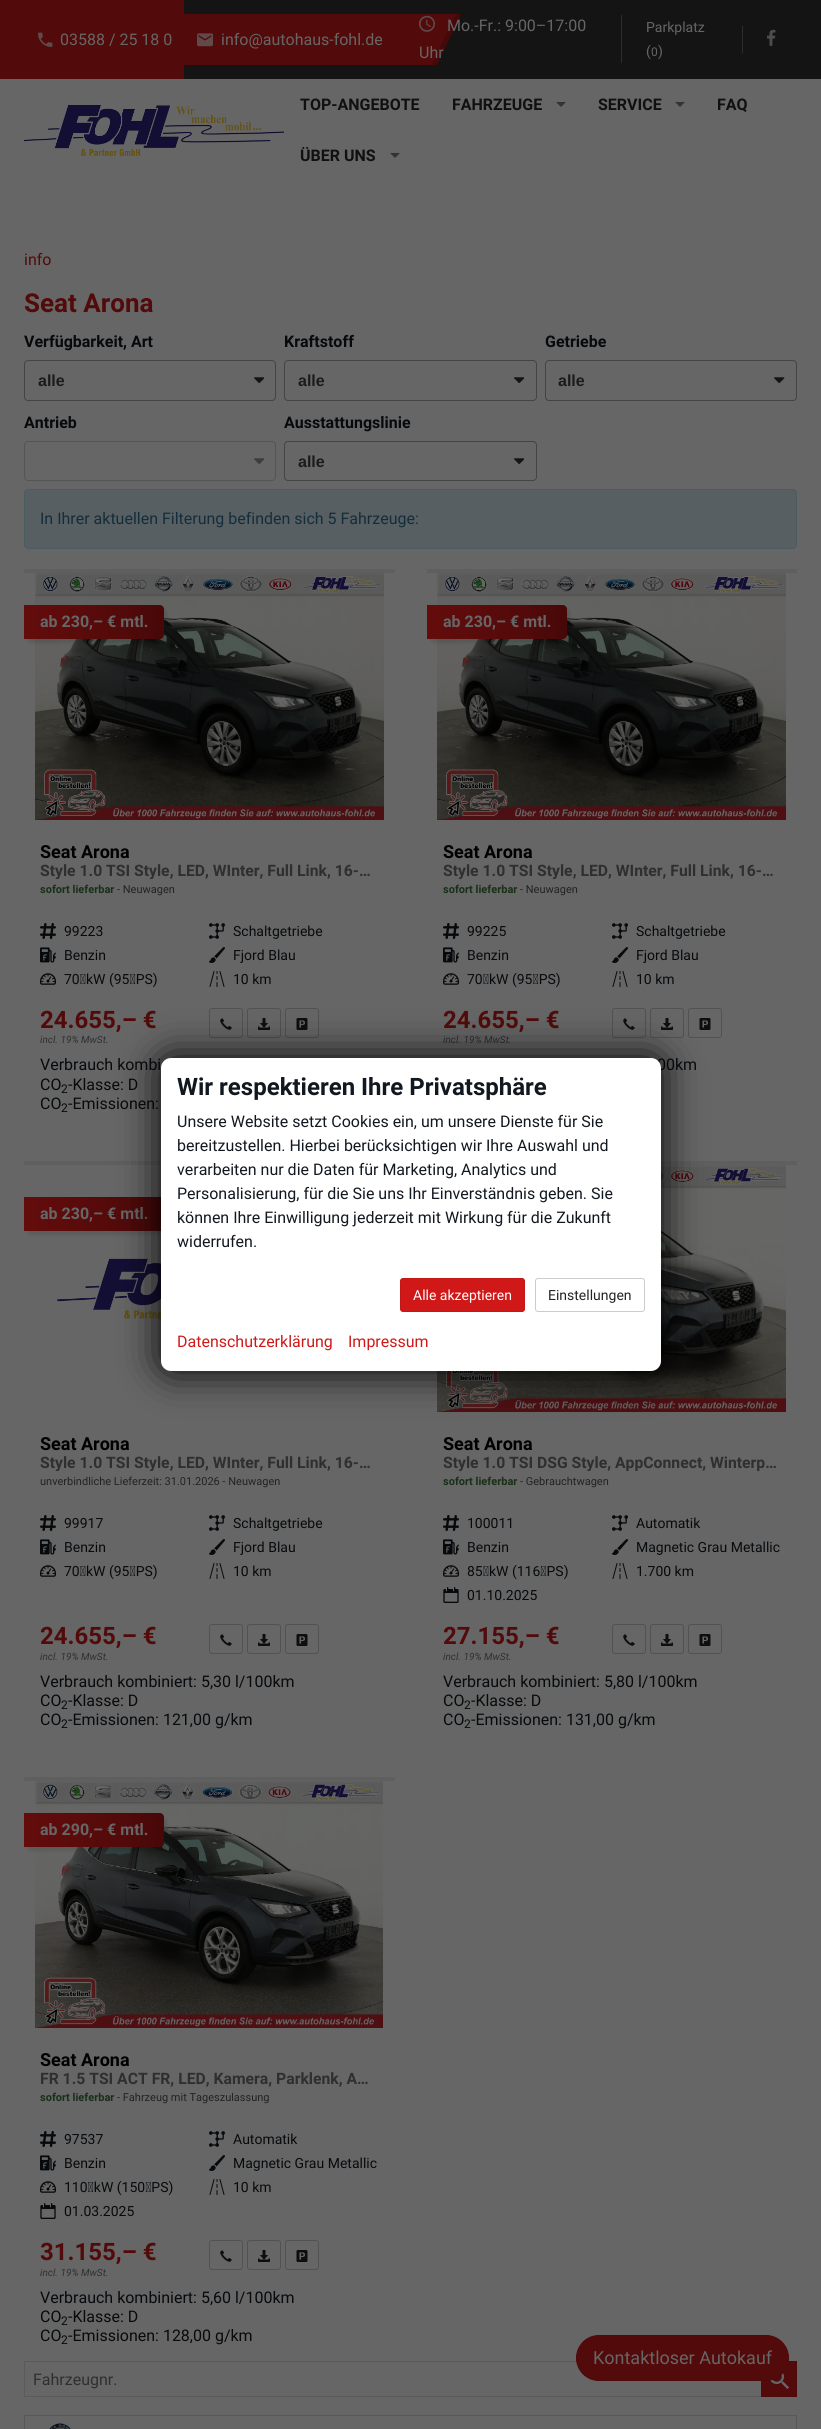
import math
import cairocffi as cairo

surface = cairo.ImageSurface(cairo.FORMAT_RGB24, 821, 2429)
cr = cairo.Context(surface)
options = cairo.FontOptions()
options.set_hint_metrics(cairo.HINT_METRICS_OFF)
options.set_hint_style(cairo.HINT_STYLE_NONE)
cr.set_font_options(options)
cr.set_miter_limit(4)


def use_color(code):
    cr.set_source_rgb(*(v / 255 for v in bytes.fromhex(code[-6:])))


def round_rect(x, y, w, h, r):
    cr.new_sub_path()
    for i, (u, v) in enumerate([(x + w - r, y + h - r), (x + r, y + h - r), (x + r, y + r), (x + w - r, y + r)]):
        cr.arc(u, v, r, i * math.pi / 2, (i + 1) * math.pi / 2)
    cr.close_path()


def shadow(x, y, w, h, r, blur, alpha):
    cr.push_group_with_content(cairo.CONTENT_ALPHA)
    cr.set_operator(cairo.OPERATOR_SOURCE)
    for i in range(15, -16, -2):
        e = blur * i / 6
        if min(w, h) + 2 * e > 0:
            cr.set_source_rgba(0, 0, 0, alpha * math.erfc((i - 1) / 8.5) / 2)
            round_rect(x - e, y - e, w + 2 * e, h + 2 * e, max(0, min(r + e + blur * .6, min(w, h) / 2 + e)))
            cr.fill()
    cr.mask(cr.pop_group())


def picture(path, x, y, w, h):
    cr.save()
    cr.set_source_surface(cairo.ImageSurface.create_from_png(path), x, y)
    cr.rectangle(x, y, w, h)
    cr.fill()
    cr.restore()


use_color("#666666")
cr.paint()
use_color("#141414")
cr.rectangle(184, 0, 637, 79)
cr.fill()
use_color("#530a0a")
cr.rectangle(0, 0, 184, 79)
cr.fill()
use_color("#470808")
cr.new_path()
cr.move_to(432, 65)
cr.line_to(437, 65)
cr.line_to(461, 14)
cr.line_to(456, 14)
cr.close_path()
cr.fill()
use_color("#530a0a")
cr.new_path()
cr.move_to(36, 14)
cr.line_to(456, 14)
cr.line_to(432, 65)
cr.line_to(12, 65)
cr.close_path()
cr.fill()
picture("img1.png", 38, 32, 15, 15)
cr.select_font_face("Roboto")
cr.set_font_size(16)
use_color("#666666")
cr.move_to(60, 45)
cr.show_text("03588 / 25 18 0")
picture("img2.png", 197, 33, 16, 14)
cr.move_to(221, 45)
cr.show_text("info@autohaus-fohl.de")
picture("img3.png", 419, 15, 16, 17)
cr.move_to(447, 31)
cr.show_text("Mo.-Fr.: 9:00–17:00")
cr.move_to(419, 58)
cr.show_text("Uhr")
use_color("#2d2d2d")
cr.rectangle(621, 15, 1, 48)
cr.fill()
cr.set_font_size(14)
use_color("#666666")
cr.move_to(646, 32)
cr.show_text("Parkplatz")
cr.move_to(646, 56)
cr.show_text("(")
cr.set_font_size(12)
cr.move_to(651, 56)
cr.show_text("0")
cr.set_font_size(14)
cr.move_to(658, 56)
cr.show_text(")")
use_color("#2d2d2d")
cr.rectangle(742, 26, 1, 27)
cr.fill()
picture("img4.png", 767, 29, 9, 17)
cr.rectangle(24.5, 2361.5, 772, 35)
use_color("#5b5b5b")
cr.set_line_width(1)
cr.stroke()
use_color("#530a0a")
cr.rectangle(762, 2362, 34, 34)
cr.fill()
picture("img23.png", 770, 2373, 19, 16)
cr.rectangle(761.5, 2361.5, 35, 35)
use_color("#4e0909")
cr.stroke()
use_color("#530a0a")
round_rect(576.5, 2335.5, 212, 45, 22.5)
cr.fill_preserve()
use_color("#4e0909")
cr.stroke()
cr.set_font_size(18)
use_color("#666666")
cr.move_to(593, 2364)
cr.show_text("Kontaktloser Autokauf")
picture("img5.png", 24, 105, 260, 51)
cr.select_font_face("Roboto", cairo.FONT_SLANT_NORMAL, cairo.FONT_WEIGHT_BOLD)
cr.set_font_size(16)
use_color("#101010")
cr.move_to(300, 110)
cr.show_text("TOP-ANGEBOTE")
cr.move_to(452, 110)
cr.show_text("FAHRZEUGE")
use_color("#333333")
cr.new_path()
cr.move_to(556, 102)
cr.line_to(566, 102)
cr.line_to(561, 107)
cr.close_path()
cr.fill()
use_color("#101010")
cr.move_to(598, 110)
cr.show_text("SERVICE")
use_color("#333333")
cr.new_path()
cr.move_to(675, 102)
cr.line_to(685, 102)
cr.line_to(680, 107)
cr.close_path()
cr.fill()
use_color("#101010")
cr.move_to(717, 110)
cr.show_text("FAQ")
cr.move_to(300, 161)
cr.show_text("ÜBER UNS")
use_color("#333333")
cr.new_path()
cr.move_to(390, 153)
cr.line_to(400, 153)
cr.line_to(395, 158)
cr.close_path()
cr.fill()
cr.select_font_face("Roboto")
use_color("#530a0a")
cr.move_to(24, 265)
cr.show_text("info")
cr.select_font_face("Roboto", cairo.FONT_SLANT_NORMAL, cairo.FONT_WEIGHT_BOLD)
cr.set_font_size(26)
cr.move_to(24, 312)
cr.show_text("Seat Arona")
cr.set_font_size(16)
use_color("#070a0d")
cr.move_to(24, 347)
cr.show_text("Verfügbarkeit, Art")
picture("img6.png", 254, 377, 10, 7)
round_rect(24.5, 360.5, 251, 40, 3.5)
use_color("#444444")
cr.stroke()
cr.select_font_face("Liberation Sans", cairo.FONT_SLANT_NORMAL, cairo.FONT_WEIGHT_BOLD)
use_color("#1b1b1b")
cr.move_to(38, 386)
cr.show_text("alle")
cr.select_font_face("Roboto", cairo.FONT_SLANT_NORMAL, cairo.FONT_WEIGHT_BOLD)
use_color("#070a0d")
cr.move_to(284, 347)
cr.show_text("Kraftstoff")
picture("img6.png", 514, 377, 10, 7)
round_rect(284.5, 360.5, 252, 40, 3.5)
use_color("#444444")
cr.stroke()
cr.select_font_face("Liberation Sans", cairo.FONT_SLANT_NORMAL, cairo.FONT_WEIGHT_BOLD)
use_color("#1b1b1b")
cr.move_to(298, 386)
cr.show_text("alle")
cr.select_font_face("Roboto", cairo.FONT_SLANT_NORMAL, cairo.FONT_WEIGHT_BOLD)
use_color("#070a0d")
cr.move_to(545, 347)
cr.show_text("Getriebe")
picture("img7.png", 774, 377, 11, 7)
round_rect(545.5, 360.5, 251, 40, 3.5)
use_color("#444444")
cr.stroke()
cr.select_font_face("Liberation Sans", cairo.FONT_SLANT_NORMAL, cairo.FONT_WEIGHT_BOLD)
use_color("#1b1b1b")
cr.move_to(558, 386)
cr.show_text("alle")
cr.select_font_face("Roboto", cairo.FONT_SLANT_NORMAL, cairo.FONT_WEIGHT_BOLD)
use_color("#070a0d")
cr.move_to(24, 428)
cr.show_text("Antrieb")
picture("img8.png", 254, 458, 10, 6)
round_rect(24.5, 441.5, 251, 39, 3.5)
use_color("#555555")
cr.stroke()
use_color("#070a0d")
cr.move_to(284, 428)
cr.show_text("Ausstattungslinie")
picture("img6.png", 514, 458, 10, 7)
round_rect(284.5, 441.5, 252, 39, 3.5)
use_color("#444444")
cr.stroke()
cr.select_font_face("Liberation Sans", cairo.FONT_SLANT_NORMAL, cairo.FONT_WEIGHT_BOLD)
use_color("#1b1b1b")
cr.move_to(298, 467)
cr.show_text("alle")
use_color("#575f63")
round_rect(24.5, 489.5, 772, 59, 3.5)
cr.fill_preserve()
use_color("#4b5d60")
cr.stroke()
cr.select_font_face("Roboto")
use_color("#142d39")
cr.move_to(40, 524)
cr.show_text("In Ihrer aktuellen Filterung befinden sich 5 Fahrzeuge:")
use_color("#5f5f5f")
cr.rectangle(24, 569, 371, 4)
cr.fill()
picture("img9.png", 35, 573, 349, 247)
use_color("#000000")
shadow(27, 609, 140, 34, 4, 1.5, 0.1)
gradient = cairo.LinearGradient(24, 622, 164, 622)
gradient.add_color_stop_rgba(0, 0.392, 0.047, 0.047, 1)
gradient.add_color_stop_rgba(0.7, 0.325, 0.039, 0.039, 1)
gradient.add_color_stop_rgba(1, 0.278, 0.031, 0.031, 1)
cr.set_source(gradient)
cr.new_path()
cr.move_to(24, 605)
cr.line_to(160, 605)
cr.curve_to(162, 605, 164, 607, 164, 609)
cr.line_to(164, 635)
cr.curve_to(164, 637, 162, 639, 160, 639)
cr.line_to(24, 639)
cr.close_path()
cr.fill()
cr.select_font_face("Roboto", cairo.FONT_SLANT_NORMAL, cairo.FONT_WEIGHT_BOLD)
use_color("#666666")
cr.move_to(40, 627)
cr.show_text("ab 230,– € mtl.")
cr.set_font_size(18)
use_color("#000000")
cr.move_to(40, 858)
cr.show_text("Seat Arona")
cr.save()
cr.rectangle(40, 862, 339, 17)
cr.clip()
cr.set_font_size(15.75)
use_color("#2f2f2f")
cr.move_to(40, 876)
cr.show_text("Style 1.0 TSI Style, LED, WInter, Full Link, 16-…")
cr.restore()
cr.set_font_size(11)
use_color("#182f18")
cr.move_to(40, 893)
cr.show_text("sofort lieferbar")
cr.select_font_face("Roboto")
use_color("#222222")
cr.move_to(117, 893)
cr.show_text("- Neuwagen")
picture("img10.png", 40, 923, 16, 16)
cr.set_font_size(14)
use_color("#070a0d")
cr.move_to(64, 936)
cr.show_text("99223")
picture("img11.png", 209, 923, 16, 16)
cr.move_to(233, 936)
cr.show_text("Schaltgetriebe")
picture("img12.png", 40, 947, 16, 16)
cr.move_to(64, 960)
cr.show_text("Benzin")
picture("img13.png", 209, 947, 16, 16)
cr.move_to(233, 960)
cr.show_text("Fjord Blau")
picture("img14.png", 40, 973, 16, 12)
cr.move_to(64, 984)
cr.show_text("70 kW (95 PS)")
picture("img15.png", 209, 971, 16, 16)
cr.move_to(233, 984)
cr.show_text("10 km")
cr.select_font_face("Roboto", cairo.FONT_SLANT_NORMAL, cairo.FONT_WEIGHT_BOLD)
cr.set_font_size(24)
use_color("#530a0a")
cr.move_to(40, 1028)
cr.show_text("24.655,– €")
cr.select_font_face("Roboto", cairo.FONT_SLANT_ITALIC)
cr.set_font_size(10)
use_color("#2f2f2f")
cr.move_to(40, 1043)
cr.show_text("incl. 19% MwSt.")
round_rect(209.5, 1008.5, 33, 29, 2.5)
use_color("#525252")
cr.stroke()
picture("img16.png", 220, 1018, 12, 12)
round_rect(247.5, 1008.5, 33, 29, 2.5)
cr.stroke()
picture("img17.png", 258, 1018, 12, 12)
round_rect(285.5, 1008.5, 33, 29, 2.5)
cr.stroke()
picture("img18.png", 296, 1018, 12, 12)
cr.select_font_face("Roboto")
cr.set_font_size(16)
use_color("#070a0d")
cr.move_to(40, 1070)
cr.show_text("Verbrauch kombi")
cr.move_to(40, 1090)
cr.show_text("CO")
cr.set_font_size(12)
cr.move_to(61, 1093)
cr.show_text("2")
cr.set_font_size(16)
cr.move_to(68, 1090)
cr.show_text("-Klasse: D")
cr.move_to(40, 1109)
cr.show_text("CO")
cr.set_font_size(12)
cr.move_to(61, 1112)
cr.show_text("2")
cr.set_font_size(16)
cr.move_to(68, 1109)
cr.show_text("-Emissionen:")
use_color("#5f5f5f")
cr.rectangle(427, 569, 370, 4)
cr.fill()
picture("img9.png", 437, 573, 349, 247)
use_color("#000000")
shadow(430, 609, 140, 34, 4, 1.5, 0.1)
gradient = cairo.LinearGradient(427, 622, 567, 622)
gradient.add_color_stop_rgba(0, 0.392, 0.047, 0.047, 1)
gradient.add_color_stop_rgba(0.7, 0.325, 0.039, 0.039, 1)
gradient.add_color_stop_rgba(1, 0.278, 0.031, 0.031, 1)
cr.set_source(gradient)
cr.new_path()
cr.move_to(427, 605)
cr.line_to(563, 605)
cr.curve_to(565, 605, 567, 607, 567, 609)
cr.line_to(567, 635)
cr.curve_to(567, 637, 565, 639, 563, 639)
cr.line_to(427, 639)
cr.close_path()
cr.fill()
cr.select_font_face("Roboto", cairo.FONT_SLANT_NORMAL, cairo.FONT_WEIGHT_BOLD)
use_color("#666666")
cr.move_to(443, 627)
cr.show_text("ab 230,– € mtl.")
cr.set_font_size(18)
use_color("#000000")
cr.move_to(443, 858)
cr.show_text("Seat Arona")
cr.save()
cr.rectangle(443, 862, 338, 17)
cr.clip()
cr.set_font_size(15.75)
use_color("#2f2f2f")
cr.move_to(443, 876)
cr.show_text("Style 1.0 TSI Style, LED, WInter, Full Link, 16-…")
cr.restore()
cr.set_font_size(11)
use_color("#182f18")
cr.move_to(443, 893)
cr.show_text("sofort lieferbar")
cr.select_font_face("Roboto")
use_color("#222222")
cr.move_to(520, 893)
cr.show_text("- Neuwagen")
picture("img10.png", 443, 923, 16, 16)
cr.set_font_size(14)
use_color("#070a0d")
cr.move_to(467, 936)
cr.show_text("99225")
picture("img11.png", 612, 923, 16, 16)
cr.move_to(636, 936)
cr.show_text("Schaltgetriebe")
picture("img12.png", 443, 947, 16, 16)
cr.move_to(467, 960)
cr.show_text("Benzin")
picture("img13.png", 612, 947, 16, 16)
cr.move_to(636, 960)
cr.show_text("Fjord Blau")
picture("img14.png", 443, 973, 16, 12)
cr.move_to(467, 984)
cr.show_text("70 kW (95 PS)")
picture("img15.png", 612, 971, 16, 16)
cr.move_to(636, 984)
cr.show_text("10 km")
cr.select_font_face("Roboto", cairo.FONT_SLANT_NORMAL, cairo.FONT_WEIGHT_BOLD)
cr.set_font_size(24)
use_color("#530a0a")
cr.move_to(443, 1028)
cr.show_text("24.655,– €")
cr.select_font_face("Roboto", cairo.FONT_SLANT_ITALIC)
cr.set_font_size(10)
use_color("#2f2f2f")
cr.move_to(443, 1043)
cr.show_text("incl. 19% MwSt.")
round_rect(612.5, 1008.5, 33, 29, 2.5)
use_color("#525252")
cr.stroke()
picture("img16.png", 623, 1018, 12, 12)
round_rect(650.5, 1008.5, 33, 29, 2.5)
cr.stroke()
picture("img17.png", 661, 1018, 12, 12)
round_rect(688.5, 1008.5, 33, 29, 2.5)
cr.stroke()
picture("img18.png", 699, 1018, 12, 12)
cr.select_font_face("Roboto")
cr.set_font_size(16)
use_color("#070a0d")
cr.move_to(657, 1070)
cr.show_text("00km")
use_color("#5f5f5f")
cr.rectangle(24, 1161, 137, 4)
cr.fill()
use_color("#000000")
shadow(27, 1201, 140, 34, 4, 1.5, 0.1)
gradient = cairo.LinearGradient(24, 1214, 164, 1214)
gradient.add_color_stop_rgba(0, 0.392, 0.047, 0.047, 1)
gradient.add_color_stop_rgba(0.7, 0.325, 0.039, 0.039, 1)
gradient.add_color_stop_rgba(1, 0.278, 0.031, 0.031, 1)
cr.set_source(gradient)
cr.rectangle(24, 1197, 137, 34)
cr.fill()
cr.select_font_face("Roboto", cairo.FONT_SLANT_NORMAL, cairo.FONT_WEIGHT_BOLD)
use_color("#666666")
cr.move_to(40, 1219)
cr.show_text("ab 230,– € mtl.")
picture("img19.png", 57, 1258, 104, 61)
cr.set_font_size(18)
use_color("#000000")
cr.move_to(40, 1450)
cr.show_text("Seat Arona")
cr.save()
cr.rectangle(40, 1454, 339, 17)
cr.clip()
cr.set_font_size(15.75)
use_color("#2f2f2f")
cr.move_to(40, 1468)
cr.show_text("Style 1.0 TSI Style, LED, WInter, Full Link, 16-…")
cr.restore()
cr.select_font_face("Roboto")
cr.set_font_size(11)
use_color("#222222")
cr.move_to(40, 1485)
cr.show_text("unverbindliche Lieferzeit: 31.01.2026 - Neuwagen")
picture("img10.png", 40, 1515, 16, 16)
cr.set_font_size(14)
use_color("#070a0d")
cr.move_to(64, 1528)
cr.show_text("99917")
picture("img11.png", 209, 1515, 16, 16)
cr.move_to(233, 1528)
cr.show_text("Schaltgetriebe")
picture("img12.png", 40, 1539, 16, 16)
cr.move_to(64, 1552)
cr.show_text("Benzin")
picture("img13.png", 209, 1539, 16, 16)
cr.move_to(233, 1552)
cr.show_text("Fjord Blau")
picture("img14.png", 40, 1565, 16, 12)
cr.move_to(64, 1576)
cr.show_text("70 kW (95 PS)")
picture("img15.png", 209, 1563, 16, 16)
cr.move_to(233, 1576)
cr.show_text("10 km")
cr.select_font_face("Roboto", cairo.FONT_SLANT_NORMAL, cairo.FONT_WEIGHT_BOLD)
cr.set_font_size(24)
use_color("#530a0a")
cr.move_to(40, 1644)
cr.show_text("24.655,– €")
cr.select_font_face("Roboto", cairo.FONT_SLANT_ITALIC)
cr.set_font_size(10)
use_color("#2f2f2f")
cr.move_to(40, 1660)
cr.show_text("incl. 19% MwSt.")
round_rect(209.5, 1624.5, 33, 29, 2.5)
use_color("#525252")
cr.stroke()
picture("img16.png", 220, 1634, 12, 12)
round_rect(247.5, 1624.5, 33, 29, 2.5)
cr.stroke()
picture("img17.png", 258, 1634, 12, 12)
round_rect(285.5, 1624.5, 33, 29, 2.5)
cr.stroke()
picture("img18.png", 296, 1634, 12, 12)
cr.select_font_face("Roboto")
cr.set_font_size(16)
use_color("#070a0d")
cr.move_to(40, 1687)
cr.show_text("Verbrauch kombiniert: 5,30 l/100km")
cr.move_to(40, 1706)
cr.show_text("CO")
cr.set_font_size(12)
cr.move_to(61, 1709)
cr.show_text("2")
cr.set_font_size(16)
cr.move_to(68, 1706)
cr.show_text("-Klasse: D")
cr.move_to(40, 1725)
cr.show_text("CO")
cr.set_font_size(12)
cr.move_to(61, 1728)
cr.show_text("2")
cr.set_font_size(16)
cr.move_to(68, 1725)
cr.show_text("-Emissionen: 121,00 g/km")
use_color("#5f5f5f")
cr.rectangle(661, 1161, 136, 4)
cr.fill()
picture("img20.png", 437, 1165, 349, 247)
cr.select_font_face("Roboto", cairo.FONT_SLANT_NORMAL, cairo.FONT_WEIGHT_BOLD)
cr.set_font_size(18)
use_color("#000000")
cr.move_to(443, 1450)
cr.show_text("Seat Arona")
cr.save()
cr.rectangle(443, 1454, 338, 17)
cr.clip()
cr.set_font_size(15.75)
use_color("#2f2f2f")
cr.move_to(443, 1468)
cr.show_text("Style 1.0 TSI DSG Style, AppConnect, Winterp…")
cr.restore()
cr.set_font_size(11)
use_color("#182f18")
cr.move_to(443, 1485)
cr.show_text("sofort lieferbar")
cr.select_font_face("Roboto")
use_color("#222222")
cr.move_to(520, 1485)
cr.show_text("- Gebrauchtwagen")
picture("img10.png", 443, 1515, 16, 16)
cr.set_font_size(14)
use_color("#070a0d")
cr.move_to(467, 1528)
cr.show_text("100011")
picture("img11.png", 612, 1515, 16, 16)
cr.move_to(636, 1528)
cr.show_text("Automatik")
picture("img12.png", 443, 1539, 16, 16)
cr.move_to(467, 1552)
cr.show_text("Benzin")
picture("img13.png", 612, 1539, 16, 16)
cr.move_to(636, 1552)
cr.show_text("Magnetic Grau Metallic")
picture("img14.png", 443, 1565, 16, 12)
cr.move_to(467, 1576)
cr.show_text("85 kW (116 PS)")
picture("img15.png", 612, 1563, 16, 16)
cr.move_to(636, 1576)
cr.show_text("1.700 km")
picture("img21.png", 443, 1587, 16, 16)
cr.move_to(467, 1600)
cr.show_text("01.10.2025")
cr.select_font_face("Roboto", cairo.FONT_SLANT_NORMAL, cairo.FONT_WEIGHT_BOLD)
cr.set_font_size(24)
use_color("#530a0a")
cr.move_to(443, 1644)
cr.show_text("27.155,– €")
cr.select_font_face("Roboto", cairo.FONT_SLANT_ITALIC)
cr.set_font_size(10)
use_color("#2f2f2f")
cr.move_to(443, 1660)
cr.show_text("incl. 19% MwSt.")
round_rect(612.5, 1624.5, 33, 29, 2.5)
use_color("#525252")
cr.stroke()
picture("img16.png", 623, 1634, 12, 12)
round_rect(650.5, 1624.5, 33, 29, 2.5)
cr.stroke()
picture("img17.png", 661, 1634, 12, 12)
round_rect(688.5, 1624.5, 33, 29, 2.5)
cr.stroke()
picture("img18.png", 699, 1634, 12, 12)
cr.select_font_face("Roboto")
cr.set_font_size(16)
use_color("#070a0d")
cr.move_to(443, 1687)
cr.show_text("Verbrauch kombiniert: 5,80 l/100km")
cr.move_to(443, 1706)
cr.show_text("CO")
cr.move_to(471, 1706)
cr.show_text("-Klasse: D")
cr.set_font_size(12)
cr.move_to(464, 1709)
cr.show_text("2")
cr.set_font_size(16)
cr.move_to(443, 1725)
cr.show_text("CO")
cr.move_to(471, 1725)
cr.show_text("-Emissionen: 131,00 g/km")
cr.set_font_size(12)
cr.move_to(464, 1728)
cr.show_text("2")
use_color("#5f5f5f")
cr.rectangle(24, 1777, 371, 4)
cr.fill()
picture("img22.png", 35, 1781, 348, 247)
use_color("#000000")
shadow(27, 1817, 140, 34, 4, 1.5, 0.1)
gradient = cairo.LinearGradient(24, 1830, 164, 1830)
gradient.add_color_stop_rgba(0, 0.392, 0.047, 0.047, 1)
gradient.add_color_stop_rgba(0.7, 0.325, 0.039, 0.039, 1)
gradient.add_color_stop_rgba(1, 0.278, 0.031, 0.031, 1)
cr.set_source(gradient)
cr.new_path()
cr.move_to(24, 1813)
cr.line_to(160, 1813)
cr.curve_to(162, 1813, 164, 1815, 164, 1817)
cr.line_to(164, 1843)
cr.curve_to(164, 1845, 162, 1847, 160, 1847)
cr.line_to(24, 1847)
cr.close_path()
cr.fill()
cr.select_font_face("Roboto", cairo.FONT_SLANT_NORMAL, cairo.FONT_WEIGHT_BOLD)
cr.set_font_size(16)
use_color("#666666")
cr.move_to(40, 1835)
cr.show_text("ab 290,– € mtl.")
cr.set_font_size(18)
use_color("#000000")
cr.move_to(40, 2066)
cr.show_text("Seat Arona")
cr.set_font_size(15.75)
use_color("#2f2f2f")
cr.move_to(40, 2084)
cr.show_text("FR 1.5 TSI ACT FR, LED, Kamera, Parklenk, A…")
cr.set_font_size(11)
use_color("#182f18")
cr.move_to(40, 2101)
cr.show_text("sofort lieferbar")
cr.select_font_face("Roboto")
use_color("#222222")
cr.move_to(117, 2101)
cr.show_text("- Fahrzeug mit Tageszulassung")
picture("img10.png", 40, 2131, 16, 16)
cr.set_font_size(14)
use_color("#070a0d")
cr.move_to(64, 2144)
cr.show_text("97537")
picture("img11.png", 209, 2131, 16, 16)
cr.move_to(233, 2144)
cr.show_text("Automatik")
picture("img12.png", 40, 2155, 16, 16)
cr.move_to(64, 2168)
cr.show_text("Benzin")
picture("img13.png", 209, 2155, 16, 16)
cr.move_to(233, 2168)
cr.show_text("Magnetic Grau Metallic")
picture("img14.png", 40, 2181, 16, 12)
cr.move_to(64, 2192)
cr.show_text("110 kW (150 PS)")
picture("img15.png", 209, 2179, 16, 16)
cr.move_to(233, 2192)
cr.show_text("10 km")
picture("img21.png", 40, 2203, 16, 16)
cr.move_to(64, 2216)
cr.show_text("01.03.2025")
cr.select_font_face("Roboto", cairo.FONT_SLANT_NORMAL, cairo.FONT_WEIGHT_BOLD)
cr.set_font_size(24)
use_color("#530a0a")
cr.move_to(40, 2260)
cr.show_text("31.155,– €")
cr.select_font_face("Roboto", cairo.FONT_SLANT_ITALIC)
cr.set_font_size(10)
use_color("#2f2f2f")
cr.move_to(40, 2276)
cr.show_text("incl. 19% MwSt.")
round_rect(209.5, 2240.5, 33, 29, 2.5)
use_color("#525252")
cr.stroke()
picture("img16.png", 220, 2250, 12, 12)
round_rect(247.5, 2240.5, 33, 29, 2.5)
cr.stroke()
picture("img17.png", 258, 2250, 12, 12)
round_rect(285.5, 2240.5, 33, 29, 2.5)
cr.stroke()
picture("img18.png", 296, 2250, 12, 12)
cr.select_font_face("Roboto")
cr.set_font_size(16)
use_color("#070a0d")
cr.move_to(40, 2303)
cr.show_text("Verbrauch kombiniert: 5,60 l/100km")
cr.move_to(40, 2322)
cr.show_text("CO")
cr.set_font_size(12)
cr.move_to(61, 2325)
cr.show_text("2")
cr.set_font_size(16)
cr.move_to(68, 2322)
cr.show_text("-Klasse: D")
cr.move_to(40, 2341)
cr.show_text("CO")
cr.set_font_size(12)
cr.move_to(61, 2344)
cr.show_text("2")
cr.set_font_size(16)
cr.move_to(68, 2341)
cr.show_text("-Emissionen: 128,00 g/km")
use_color("#2f2f2f")
cr.move_to(33, 2385)
cr.show_text("Fahrzeugnr.")
cr.rectangle(24.5, 2415.5, 772, 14)
use_color("#585858")
cr.stroke()
picture("img24.png", 49, 2423, 22, 6)
use_color("#000000")
shadow(161, 1058, 500, 313, 10, 20, 1)
use_color("#ffffff")
round_rect(161, 1058, 500, 313, 10)
cr.fill()
cr.select_font_face("Roboto", cairo.FONT_SLANT_NORMAL, cairo.FONT_WEIGHT_BOLD)
cr.set_font_size(24)
use_color("#121820")
cr.move_to(177, 1095)
cr.show_text("Wir respektieren Ihre Privatsphäre")
cr.select_font_face("Roboto")
cr.set_font_size(16)
cr.move_to(177, 1127)
cr.show_text("Unsere Website setzt Cookies ein, um unsere Dienste für Sie")
cr.move_to(177, 1151)
cr.show_text("bereitzustellen. Hierbei berücksichtigen wir Ihre Auswahl und")
cr.move_to(177, 1175)
cr.show_text("verarbeiten nur die Daten für Marketing, Analytics und")
cr.move_to(177, 1199)
cr.show_text("Personalisierung, für die Sie uns Ihr Einverständnis geben. Sie")
cr.move_to(177, 1223)
cr.show_text("können Ihre Einwilligung jederzeit mit Wirkung für die Zukunft")
cr.move_to(177, 1247)
cr.show_text("widerrufen.")
use_color("#d01818")
round_rect(400.5, 1278.5, 124, 33, 2.5)
cr.fill_preserve()
use_color("#c31616")
cr.stroke()
cr.set_font_size(14)
use_color("#ffffff")
cr.move_to(413, 1300)
cr.show_text("Alle akzeptieren")
round_rect(535.5, 1278.5, 109, 33, 2.5)
use_color("#cccccc")
cr.stroke()
use_color("#222222")
cr.move_to(548, 1300)
cr.show_text("Einstellungen")
cr.set_font_size(16)
use_color("#d01818")
cr.move_to(177, 1347)
cr.show_text("Datenschutzerklärung")
cr.move_to(348, 1347)
cr.show_text("Impressum")
surface.write_to_png("result.png")
